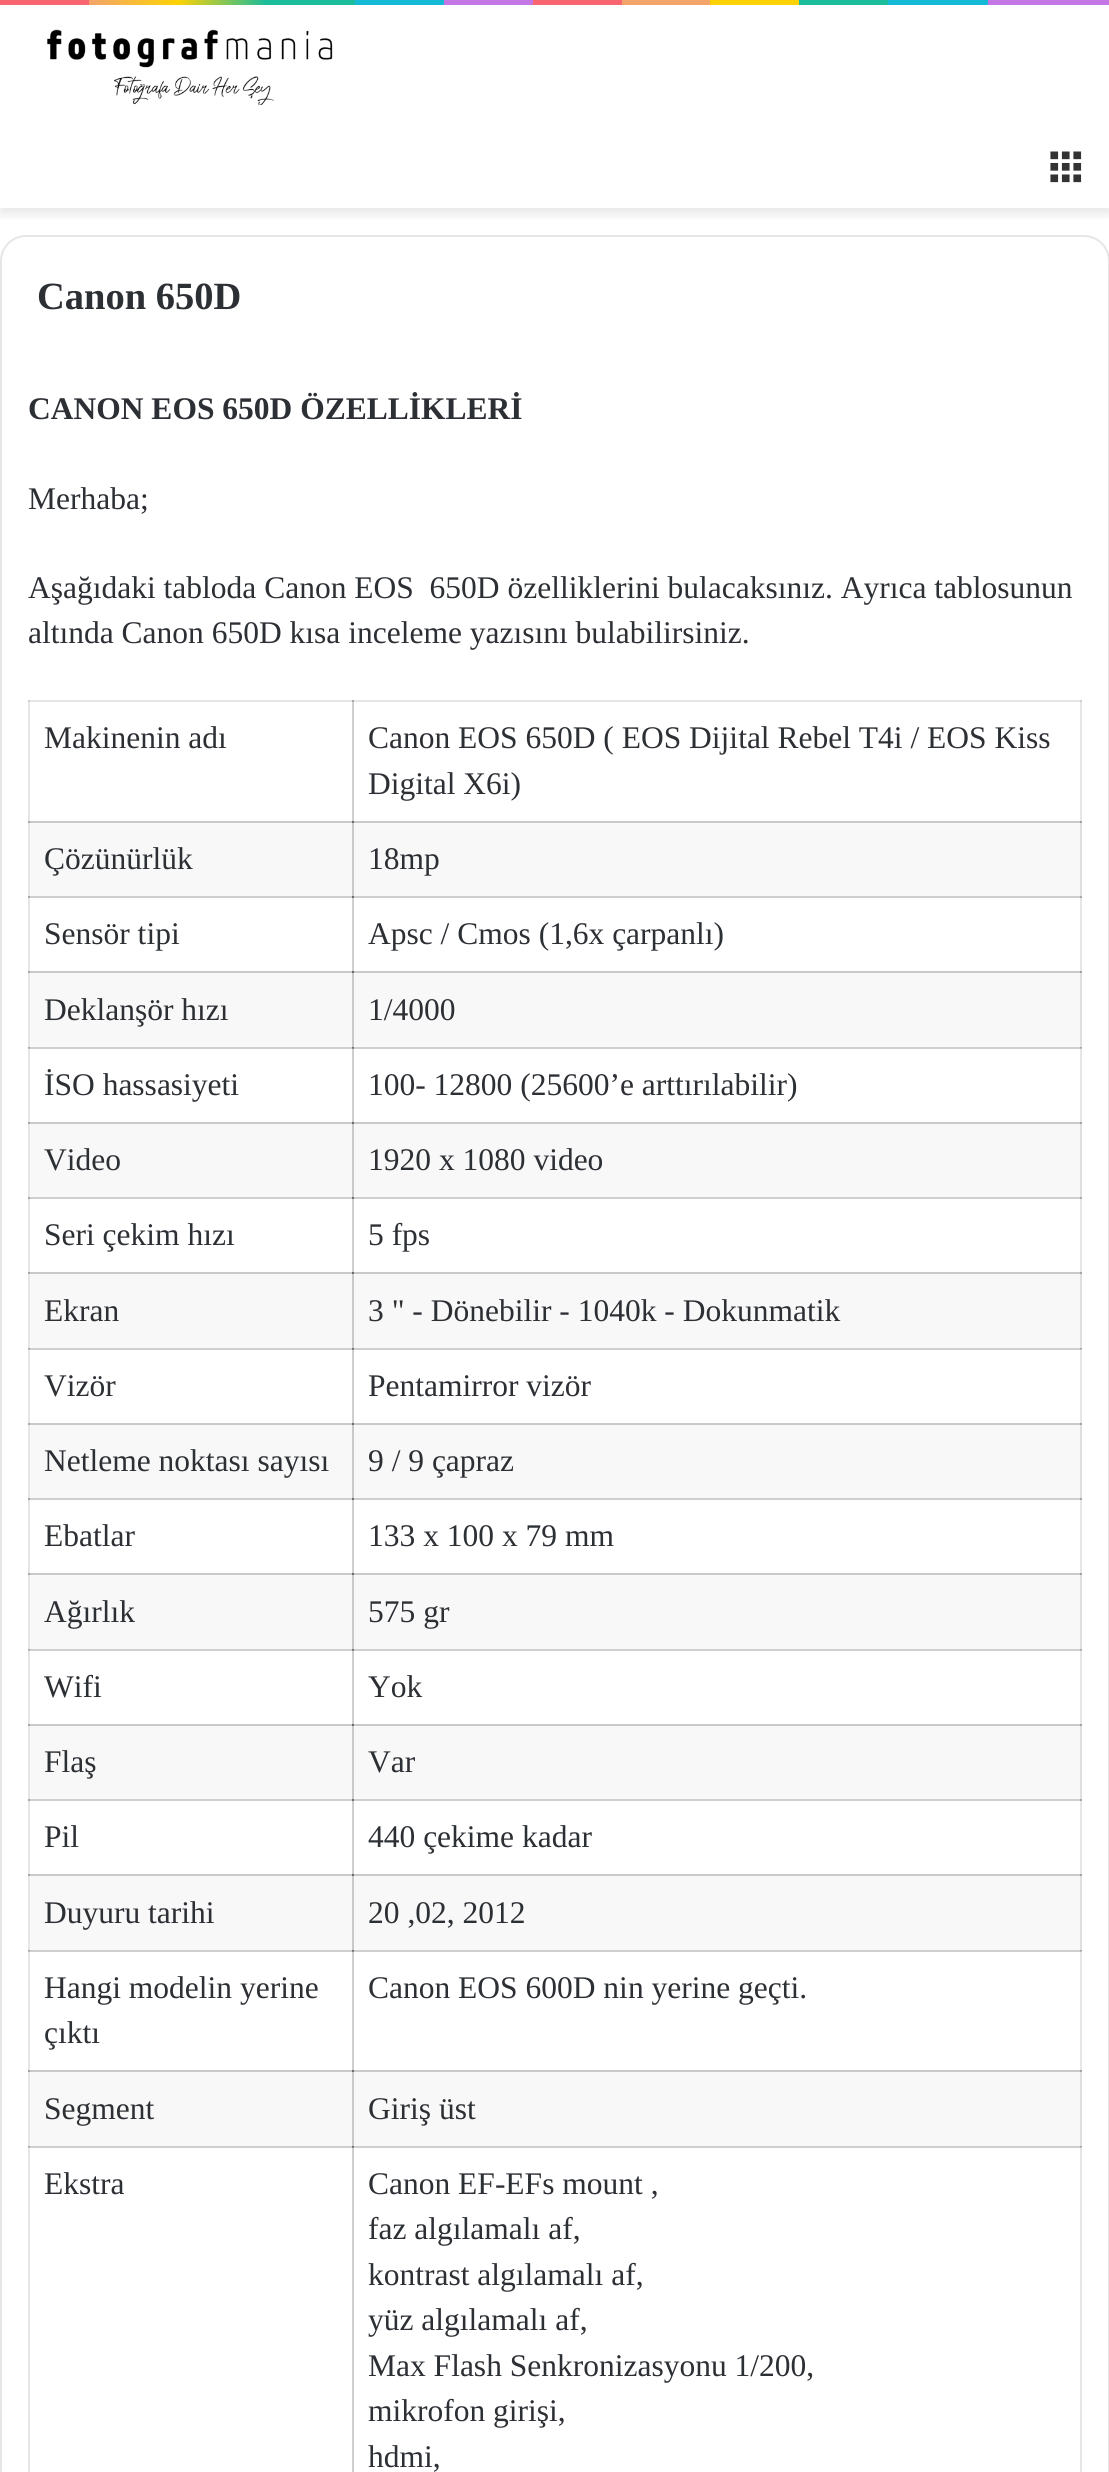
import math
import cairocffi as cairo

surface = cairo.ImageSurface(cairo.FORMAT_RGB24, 1109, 2472)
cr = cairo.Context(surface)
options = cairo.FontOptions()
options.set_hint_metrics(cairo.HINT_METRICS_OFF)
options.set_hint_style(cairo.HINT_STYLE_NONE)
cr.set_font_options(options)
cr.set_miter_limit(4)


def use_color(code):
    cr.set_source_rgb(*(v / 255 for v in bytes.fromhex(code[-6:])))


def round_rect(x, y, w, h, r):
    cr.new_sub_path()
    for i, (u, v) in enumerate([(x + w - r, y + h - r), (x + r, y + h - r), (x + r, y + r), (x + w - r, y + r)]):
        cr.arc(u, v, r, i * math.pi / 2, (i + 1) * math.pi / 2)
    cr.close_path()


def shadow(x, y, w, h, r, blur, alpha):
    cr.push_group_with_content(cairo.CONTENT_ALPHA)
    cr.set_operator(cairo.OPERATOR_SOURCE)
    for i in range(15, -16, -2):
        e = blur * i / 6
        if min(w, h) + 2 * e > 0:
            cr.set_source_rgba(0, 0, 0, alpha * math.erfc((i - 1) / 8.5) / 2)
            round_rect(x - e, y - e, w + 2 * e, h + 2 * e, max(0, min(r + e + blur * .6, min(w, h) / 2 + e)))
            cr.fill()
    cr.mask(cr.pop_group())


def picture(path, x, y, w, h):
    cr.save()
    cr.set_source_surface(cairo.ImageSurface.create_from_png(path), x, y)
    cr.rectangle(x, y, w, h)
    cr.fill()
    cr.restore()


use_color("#ffffff")
cr.paint()
use_color("#e6e6e6")
cr.rectangle(28, 700, 2, 1772)
cr.fill()
cr.rectangle(28, 700, 326, 2)
cr.fill()
use_color("#cfcfcf")
cr.rectangle(28, 700, 2, 2)
cr.fill()
cr.rectangle(352, 700, 2, 123)
cr.fill()
use_color("#e6e6e6")
cr.rectangle(1080, 700, 2, 123)
cr.fill()
use_color("#a7a7a7")
cr.rectangle(28, 821, 2, 2)
cr.fill()
use_color("#cfcfcf")
cr.rectangle(28, 896, 326, 2)
cr.fill()
use_color("#a7a7a7")
cr.rectangle(28, 896, 2, 2)
cr.fill()
use_color("#cfcfcf")
cr.rectangle(352, 896, 2, 77)
cr.fill()
use_color("#e6e6e6")
cr.rectangle(1080, 896, 2, 77)
cr.fill()
use_color("#a7a7a7")
cr.rectangle(28, 971, 2, 2)
cr.fill()
use_color("#cfcfcf")
cr.rectangle(28, 1047, 326, 2)
cr.fill()
use_color("#bababa")
cr.rectangle(28, 1048, 2, 1)
cr.fill()
use_color("#a7a7a7")
cr.rectangle(28, 1047, 2, 1)
cr.fill()
use_color("#cfcfcf")
cr.rectangle(352, 1047, 2, 77)
cr.fill()
use_color("#e6e6e6")
cr.rectangle(1080, 1047, 2, 77)
cr.fill()
use_color("#a7a7a7")
cr.rectangle(28, 1122, 2, 2)
cr.fill()
use_color("#cfcfcf")
cr.rectangle(28, 1197, 326, 2)
cr.fill()
use_color("#a7a7a7")
cr.rectangle(28, 1197, 2, 2)
cr.fill()
use_color("#cfcfcf")
cr.rectangle(352, 1197, 2, 77)
cr.fill()
use_color("#e6e6e6")
cr.rectangle(1080, 1197, 2, 77)
cr.fill()
use_color("#a7a7a7")
cr.rectangle(28, 1272, 2, 2)
cr.fill()
use_color("#cfcfcf")
cr.rectangle(28, 1348, 326, 2)
cr.fill()
use_color("#bababa")
cr.rectangle(28, 1349, 2, 1)
cr.fill()
use_color("#a7a7a7")
cr.rectangle(28, 1348, 2, 1)
cr.fill()
use_color("#cfcfcf")
cr.rectangle(352, 1348, 2, 77)
cr.fill()
use_color("#e6e6e6")
cr.rectangle(1080, 1348, 2, 77)
cr.fill()
use_color("#a7a7a7")
cr.rectangle(28, 1423, 2, 2)
cr.fill()
use_color("#cfcfcf")
cr.rectangle(28, 1498, 326, 2)
cr.fill()
use_color("#a7a7a7")
cr.rectangle(28, 1498, 2, 2)
cr.fill()
use_color("#cfcfcf")
cr.rectangle(352, 1498, 2, 77)
cr.fill()
use_color("#e6e6e6")
cr.rectangle(1080, 1498, 2, 77)
cr.fill()
use_color("#a7a7a7")
cr.rectangle(28, 1573, 2, 2)
cr.fill()
use_color("#cfcfcf")
cr.rectangle(28, 1649, 326, 2)
cr.fill()
use_color("#bababa")
cr.rectangle(28, 1650, 2, 1)
cr.fill()
use_color("#a7a7a7")
cr.rectangle(28, 1649, 2, 1)
cr.fill()
use_color("#cfcfcf")
cr.rectangle(352, 1649, 2, 77)
cr.fill()
use_color("#e6e6e6")
cr.rectangle(1080, 1649, 2, 77)
cr.fill()
use_color("#a7a7a7")
cr.rectangle(28, 1724, 2, 2)
cr.fill()
use_color("#cfcfcf")
cr.rectangle(28, 1799, 326, 2)
cr.fill()
use_color("#a7a7a7")
cr.rectangle(28, 1799, 2, 2)
cr.fill()
use_color("#cfcfcf")
cr.rectangle(352, 1799, 2, 77)
cr.fill()
use_color("#e6e6e6")
cr.rectangle(1080, 1799, 2, 77)
cr.fill()
use_color("#a7a7a7")
cr.rectangle(28, 1874, 2, 2)
cr.fill()
use_color("#cfcfcf")
cr.rectangle(28, 1950, 326, 2)
cr.fill()
use_color("#bababa")
cr.rectangle(28, 1951, 2, 1)
cr.fill()
use_color("#a7a7a7")
cr.rectangle(28, 1950, 2, 1)
cr.fill()
use_color("#cfcfcf")
cr.rectangle(352, 1950, 2, 122)
cr.fill()
use_color("#e6e6e6")
cr.rectangle(1080, 1950, 2, 122)
cr.fill()
use_color("#a7a7a7")
cr.rectangle(28, 2070, 2, 2)
cr.fill()
use_color("#cfcfcf")
cr.rectangle(28, 2146, 326, 2)
cr.fill()
use_color("#bababa")
cr.rectangle(28, 2147, 2, 1)
cr.fill()
use_color("#a7a7a7")
cr.rectangle(28, 2146, 2, 1)
cr.fill()
use_color("#cfcfcf")
cr.rectangle(352, 2146, 2, 326)
cr.fill()
use_color("#e6e6e6")
cr.rectangle(1080, 2146, 2, 326)
cr.fill()
gradient = cairo.LinearGradient(0, 2.6, 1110, 2.6)
gradient.add_color_stop_rgba(0, 0.969, 0.396, 0.439, 1)
gradient.add_color_stop_rgba(0.08, 0.969, 0.396, 0.439, 1)
gradient.add_color_stop_rgba(0.08, 0.953, 0.643, 0.42, 1)
gradient.add_color_stop_rgba(0.16, 1, 0.824, 0.02, 1)
gradient.add_color_stop_rgba(0.24, 0.106, 0.737, 0.608, 1)
gradient.add_color_stop_rgba(0.32, 0.106, 0.737, 0.608, 1)
gradient.add_color_stop_rgba(0.32, 0.078, 0.725, 0.835, 1)
gradient.add_color_stop_rgba(0.4, 0.078, 0.725, 0.835, 1)
gradient.add_color_stop_rgba(0.4, 0.765, 0.467, 0.894, 1)
gradient.add_color_stop_rgba(0.48, 0.765, 0.467, 0.894, 1)
gradient.add_color_stop_rgba(0.48, 0.969, 0.396, 0.439, 1)
gradient.add_color_stop_rgba(0.56, 0.969, 0.396, 0.439, 1)
gradient.add_color_stop_rgba(0.56, 0.953, 0.643, 0.42, 1)
gradient.add_color_stop_rgba(0.64, 0.953, 0.643, 0.42, 1)
gradient.add_color_stop_rgba(0.64, 1, 0.824, 0.02, 1)
gradient.add_color_stop_rgba(0.72, 1, 0.824, 0.02, 1)
gradient.add_color_stop_rgba(0.72, 0.106, 0.737, 0.608, 1)
gradient.add_color_stop_rgba(0.8, 0.106, 0.737, 0.608, 1)
gradient.add_color_stop_rgba(0.8, 0.078, 0.725, 0.835, 1)
gradient.add_color_stop_rgba(0.89, 0.078, 0.725, 0.835, 1)
gradient.add_color_stop_rgba(0.89, 0.765, 0.467, 0.894, 1)
gradient.add_color_stop_rgba(1, 0.765, 0.467, 0.894, 1)
cr.set_source(gradient)
cr.rectangle(0, 0, 1109, 5)
cr.fill()
cr.save()
cr.rectangle(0, 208, 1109, 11)
cr.clip()
use_color("#000000")
shadow(0, 11, 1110, 203, 0, 6, 0.1)
cr.restore()
picture("img1.png", 47, 29, 286, 76)
picture("img2.png", 1050, 151, 32, 32)
round_rect(1, 236, 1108, 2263, 25)
use_color("#e6e6e6")
cr.stroke()
cr.select_font_face("Liberation Serif", cairo.FONT_SLANT_NORMAL, cairo.FONT_WEIGHT_BOLD)
cr.set_font_size(38.5)
use_color("#2c2f34")
cr.move_to(37, 309)
cr.show_text("Canon 650D")
cr.set_font_size(31.5)
cr.move_to(28, 419)
cr.show_text("CANON EOS 650D ÖZELLİKLERİ")
cr.select_font_face("Liberation Serif")
cr.move_to(28, 509)
cr.show_text("Merhaba;")
cr.move_to(28, 598)
cr.show_text("Aşağıdaki tabloda Canon EOS  650D özelliklerini bulacaksınız. Ayrıca tablosunun")
cr.move_to(28, 643)
cr.show_text("altında Canon 650D kısa inceleme yazısını bulabilirsiniz.")
cr.move_to(44, 748)
cr.show_text("Makinenin adı")
use_color("#e6e6e6")
cr.rectangle(352, 700, 730, 2)
cr.fill()
use_color("#a7a7a7")
cr.rectangle(352, 700, 2, 2)
cr.fill()
use_color("#cfcfcf")
cr.rectangle(1080, 700, 2, 2)
cr.fill()
use_color("#2c2f34")
cr.move_to(368, 748)
cr.show_text("Canon EOS 650D ( EOS Dijital Rebel T4i / EOS Kiss")
cr.move_to(368, 794)
cr.show_text("Digital X6i)")
use_color("#f8f8f8")
cr.rectangle(30, 823, 1050, 73)
cr.fill()
use_color("#c9c9c9")
cr.rectangle(30, 821, 324, 2)
cr.fill()
cr.rectangle(352, 821, 2, 75)
cr.fill()
use_color("#dfdfdf")
cr.rectangle(1080, 821, 2, 75)
cr.fill()
use_color("#2c2f34")
cr.move_to(44, 869)
cr.show_text("Çözünürlük")
use_color("#c9c9c9")
cr.rectangle(352, 821, 730, 2)
cr.fill()
use_color("#6b6b6b")
cr.rectangle(352, 821, 2, 2)
cr.fill()
use_color("#a3a3a3")
cr.rectangle(1080, 821, 2, 2)
cr.fill()
use_color("#2c2f34")
cr.move_to(368, 869)
cr.show_text("18mp")
cr.move_to(44, 944)
cr.show_text("Sensör tipi")
use_color("#cfcfcf")
cr.rectangle(352, 896, 730, 2)
cr.fill()
use_color("#6e6e6e")
cr.rectangle(352, 896, 2, 2)
cr.fill()
use_color("#a7a7a7")
cr.rectangle(1080, 896, 2, 2)
cr.fill()
use_color("#2c2f34")
cr.move_to(368, 944)
cr.show_text("Apsc / Cmos (1,6x çarpanlı)")
use_color("#f8f8f8")
cr.rectangle(30, 973, 1050, 74)
cr.fill()
use_color("#c9c9c9")
cr.rectangle(30, 971, 324, 2)
cr.fill()
cr.rectangle(352, 971, 2, 76)
cr.fill()
use_color("#dfdfdf")
cr.rectangle(1080, 971, 2, 76)
cr.fill()
use_color("#2c2f34")
cr.move_to(44, 1020)
cr.show_text("Deklanşör hızı")
use_color("#c9c9c9")
cr.rectangle(352, 971, 730, 2)
cr.fill()
use_color("#6b6b6b")
cr.rectangle(352, 971, 2, 2)
cr.fill()
use_color("#a3a3a3")
cr.rectangle(1080, 971, 2, 2)
cr.fill()
use_color("#2c2f34")
cr.move_to(368, 1020)
cr.show_text("1/4000")
cr.move_to(44, 1095)
cr.show_text("İSO hassasiyeti")
use_color("#cfcfcf")
cr.rectangle(352, 1047, 730, 2)
cr.fill()
use_color("#878787")
cr.rectangle(352, 1048, 2, 1)
cr.fill()
use_color("#6e6e6e")
cr.rectangle(352, 1047, 2, 1)
cr.fill()
use_color("#bababa")
cr.rectangle(1080, 1048, 2, 1)
cr.fill()
use_color("#a7a7a7")
cr.rectangle(1080, 1047, 2, 1)
cr.fill()
use_color("#2c2f34")
cr.move_to(368, 1095)
cr.show_text("100- 12800 (25600’e arttırılabilir)")
use_color("#f8f8f8")
cr.rectangle(30, 1124, 1050, 73)
cr.fill()
use_color("#c9c9c9")
cr.rectangle(30, 1122, 324, 2)
cr.fill()
cr.rectangle(352, 1122, 2, 75)
cr.fill()
use_color("#dfdfdf")
cr.rectangle(1080, 1122, 2, 75)
cr.fill()
use_color("#2c2f34")
cr.move_to(44, 1170)
cr.show_text("Video")
use_color("#c9c9c9")
cr.rectangle(352, 1122, 730, 2)
cr.fill()
use_color("#6b6b6b")
cr.rectangle(352, 1122, 2, 2)
cr.fill()
use_color("#a3a3a3")
cr.rectangle(1080, 1122, 2, 2)
cr.fill()
use_color("#2c2f34")
cr.move_to(368, 1170)
cr.show_text("1920 x 1080 video")
cr.move_to(44, 1245)
cr.show_text("Seri çekim hızı")
use_color("#cfcfcf")
cr.rectangle(352, 1197, 730, 2)
cr.fill()
use_color("#6e6e6e")
cr.rectangle(352, 1197, 2, 2)
cr.fill()
use_color("#a7a7a7")
cr.rectangle(1080, 1197, 2, 2)
cr.fill()
use_color("#2c2f34")
cr.move_to(368, 1245)
cr.show_text("5 fps")
use_color("#f8f8f8")
cr.rectangle(30, 1274, 1050, 74)
cr.fill()
use_color("#c9c9c9")
cr.rectangle(30, 1272, 324, 2)
cr.fill()
cr.rectangle(352, 1272, 2, 76)
cr.fill()
use_color("#dfdfdf")
cr.rectangle(1080, 1272, 2, 76)
cr.fill()
use_color("#2c2f34")
cr.move_to(44, 1321)
cr.show_text("Ekran")
use_color("#c9c9c9")
cr.rectangle(352, 1272, 730, 2)
cr.fill()
use_color("#6b6b6b")
cr.rectangle(352, 1272, 2, 2)
cr.fill()
use_color("#a3a3a3")
cr.rectangle(1080, 1272, 2, 2)
cr.fill()
use_color("#2c2f34")
cr.move_to(368, 1321)
cr.show_text("3 \" - Dönebilir - 1040k - Dokunmatik")
cr.move_to(44, 1396)
cr.show_text("Vizör")
use_color("#cfcfcf")
cr.rectangle(352, 1348, 730, 2)
cr.fill()
use_color("#878787")
cr.rectangle(352, 1349, 2, 1)
cr.fill()
use_color("#6e6e6e")
cr.rectangle(352, 1348, 2, 1)
cr.fill()
use_color("#bababa")
cr.rectangle(1080, 1349, 2, 1)
cr.fill()
use_color("#a7a7a7")
cr.rectangle(1080, 1348, 2, 1)
cr.fill()
use_color("#2c2f34")
cr.move_to(368, 1396)
cr.show_text("Pentamirror vizör")
use_color("#f8f8f8")
cr.rectangle(30, 1425, 1050, 73)
cr.fill()
use_color("#c9c9c9")
cr.rectangle(30, 1423, 324, 2)
cr.fill()
cr.rectangle(352, 1423, 2, 75)
cr.fill()
use_color("#dfdfdf")
cr.rectangle(1080, 1423, 2, 75)
cr.fill()
use_color("#2c2f34")
cr.move_to(44, 1471)
cr.show_text("Netleme noktası sayısı")
use_color("#c9c9c9")
cr.rectangle(352, 1423, 730, 2)
cr.fill()
use_color("#6b6b6b")
cr.rectangle(352, 1423, 2, 2)
cr.fill()
use_color("#a3a3a3")
cr.rectangle(1080, 1423, 2, 2)
cr.fill()
use_color("#2c2f34")
cr.move_to(368, 1471)
cr.show_text("9 / 9 çapraz")
cr.move_to(44, 1546)
cr.show_text("Ebatlar")
use_color("#cfcfcf")
cr.rectangle(352, 1498, 730, 2)
cr.fill()
use_color("#6e6e6e")
cr.rectangle(352, 1498, 2, 2)
cr.fill()
use_color("#a7a7a7")
cr.rectangle(1080, 1498, 2, 2)
cr.fill()
use_color("#2c2f34")
cr.move_to(368, 1546)
cr.show_text("133 x 100 x 79 mm")
use_color("#f8f8f8")
cr.rectangle(30, 1575, 1050, 74)
cr.fill()
use_color("#c9c9c9")
cr.rectangle(30, 1573, 324, 2)
cr.fill()
cr.rectangle(352, 1573, 2, 76)
cr.fill()
use_color("#dfdfdf")
cr.rectangle(1080, 1573, 2, 76)
cr.fill()
use_color("#2c2f34")
cr.move_to(44, 1622)
cr.show_text("Ağırlık")
use_color("#c9c9c9")
cr.rectangle(352, 1573, 730, 2)
cr.fill()
use_color("#6b6b6b")
cr.rectangle(352, 1573, 2, 2)
cr.fill()
use_color("#a3a3a3")
cr.rectangle(1080, 1573, 2, 2)
cr.fill()
use_color("#2c2f34")
cr.move_to(368, 1622)
cr.show_text("575 gr")
cr.move_to(44, 1697)
cr.show_text("Wifi")
use_color("#cfcfcf")
cr.rectangle(352, 1649, 730, 2)
cr.fill()
use_color("#878787")
cr.rectangle(352, 1650, 2, 1)
cr.fill()
use_color("#6e6e6e")
cr.rectangle(352, 1649, 2, 1)
cr.fill()
use_color("#bababa")
cr.rectangle(1080, 1650, 2, 1)
cr.fill()
use_color("#a7a7a7")
cr.rectangle(1080, 1649, 2, 1)
cr.fill()
use_color("#2c2f34")
cr.move_to(368, 1697)
cr.show_text("Yok")
use_color("#f8f8f8")
cr.rectangle(30, 1726, 1050, 73)
cr.fill()
use_color("#c9c9c9")
cr.rectangle(30, 1724, 324, 2)
cr.fill()
cr.rectangle(352, 1724, 2, 75)
cr.fill()
use_color("#dfdfdf")
cr.rectangle(1080, 1724, 2, 75)
cr.fill()
use_color("#2c2f34")
cr.move_to(44, 1772)
cr.show_text("Flaş")
use_color("#c9c9c9")
cr.rectangle(352, 1724, 730, 2)
cr.fill()
use_color("#6b6b6b")
cr.rectangle(352, 1724, 2, 2)
cr.fill()
use_color("#a3a3a3")
cr.rectangle(1080, 1724, 2, 2)
cr.fill()
use_color("#2c2f34")
cr.move_to(368, 1772)
cr.show_text("Var")
cr.move_to(44, 1847)
cr.show_text("Pil")
use_color("#cfcfcf")
cr.rectangle(352, 1799, 730, 2)
cr.fill()
use_color("#6e6e6e")
cr.rectangle(352, 1799, 2, 2)
cr.fill()
use_color("#a7a7a7")
cr.rectangle(1080, 1799, 2, 2)
cr.fill()
use_color("#2c2f34")
cr.move_to(368, 1847)
cr.show_text("440 çekime kadar")
use_color("#f8f8f8")
cr.rectangle(30, 1876, 1050, 74)
cr.fill()
use_color("#c9c9c9")
cr.rectangle(30, 1874, 324, 2)
cr.fill()
cr.rectangle(352, 1874, 2, 76)
cr.fill()
use_color("#dfdfdf")
cr.rectangle(1080, 1874, 2, 76)
cr.fill()
use_color("#2c2f34")
cr.move_to(44, 1923)
cr.show_text("Duyuru tarihi")
use_color("#c9c9c9")
cr.rectangle(352, 1874, 730, 2)
cr.fill()
use_color("#6b6b6b")
cr.rectangle(352, 1874, 2, 2)
cr.fill()
use_color("#a3a3a3")
cr.rectangle(1080, 1874, 2, 2)
cr.fill()
use_color("#2c2f34")
cr.move_to(368, 1923)
cr.show_text("20 ,02, 2012")
cr.move_to(44, 1998)
cr.show_text("Hangi modelin yerine")
cr.move_to(44, 2043)
cr.show_text("çıktı")
use_color("#cfcfcf")
cr.rectangle(352, 1950, 730, 2)
cr.fill()
use_color("#878787")
cr.rectangle(352, 1951, 2, 1)
cr.fill()
use_color("#6e6e6e")
cr.rectangle(352, 1950, 2, 1)
cr.fill()
use_color("#bababa")
cr.rectangle(1080, 1951, 2, 1)
cr.fill()
use_color("#a7a7a7")
cr.rectangle(1080, 1950, 2, 1)
cr.fill()
use_color("#2c2f34")
cr.move_to(368, 1998)
cr.show_text("Canon EOS 600D nin yerine geçti.")
use_color("#f8f8f8")
cr.rectangle(30, 2072, 1050, 74)
cr.fill()
use_color("#c9c9c9")
cr.rectangle(30, 2070, 324, 2)
cr.fill()
cr.rectangle(352, 2070, 2, 76)
cr.fill()
use_color("#dfdfdf")
cr.rectangle(1080, 2070, 2, 76)
cr.fill()
use_color("#2c2f34")
cr.move_to(44, 2119)
cr.show_text("Segment")
use_color("#c9c9c9")
cr.rectangle(352, 2070, 730, 2)
cr.fill()
use_color("#6b6b6b")
cr.rectangle(352, 2070, 2, 2)
cr.fill()
use_color("#a3a3a3")
cr.rectangle(1080, 2070, 2, 2)
cr.fill()
use_color("#2c2f34")
cr.move_to(368, 2119)
cr.show_text("Giriş üst")
cr.move_to(44, 2194)
cr.show_text("Ekstra")
use_color("#cfcfcf")
cr.rectangle(352, 2146, 730, 2)
cr.fill()
use_color("#878787")
cr.rectangle(352, 2147, 2, 1)
cr.fill()
use_color("#6e6e6e")
cr.rectangle(352, 2146, 2, 1)
cr.fill()
use_color("#bababa")
cr.rectangle(1080, 2147, 2, 1)
cr.fill()
use_color("#a7a7a7")
cr.rectangle(1080, 2146, 2, 1)
cr.fill()
use_color("#2c2f34")
cr.move_to(368, 2194)
cr.show_text("Canon EF-EFs mount ,")
cr.move_to(368, 2239)
cr.show_text("faz algılamalı af,")
cr.move_to(368, 2285)
cr.show_text("kontrast algılamalı af,")
cr.move_to(368, 2330)
cr.show_text("yüz algılamalı af,")
cr.move_to(368, 2376)
cr.show_text("Max Flash Senkronizasyonu 1/200,")
cr.move_to(368, 2421)
cr.show_text("mikrofon girişi,")
cr.move_to(368, 2467)
cr.show_text("hdmi,")
surface.write_to_png("result.png")
